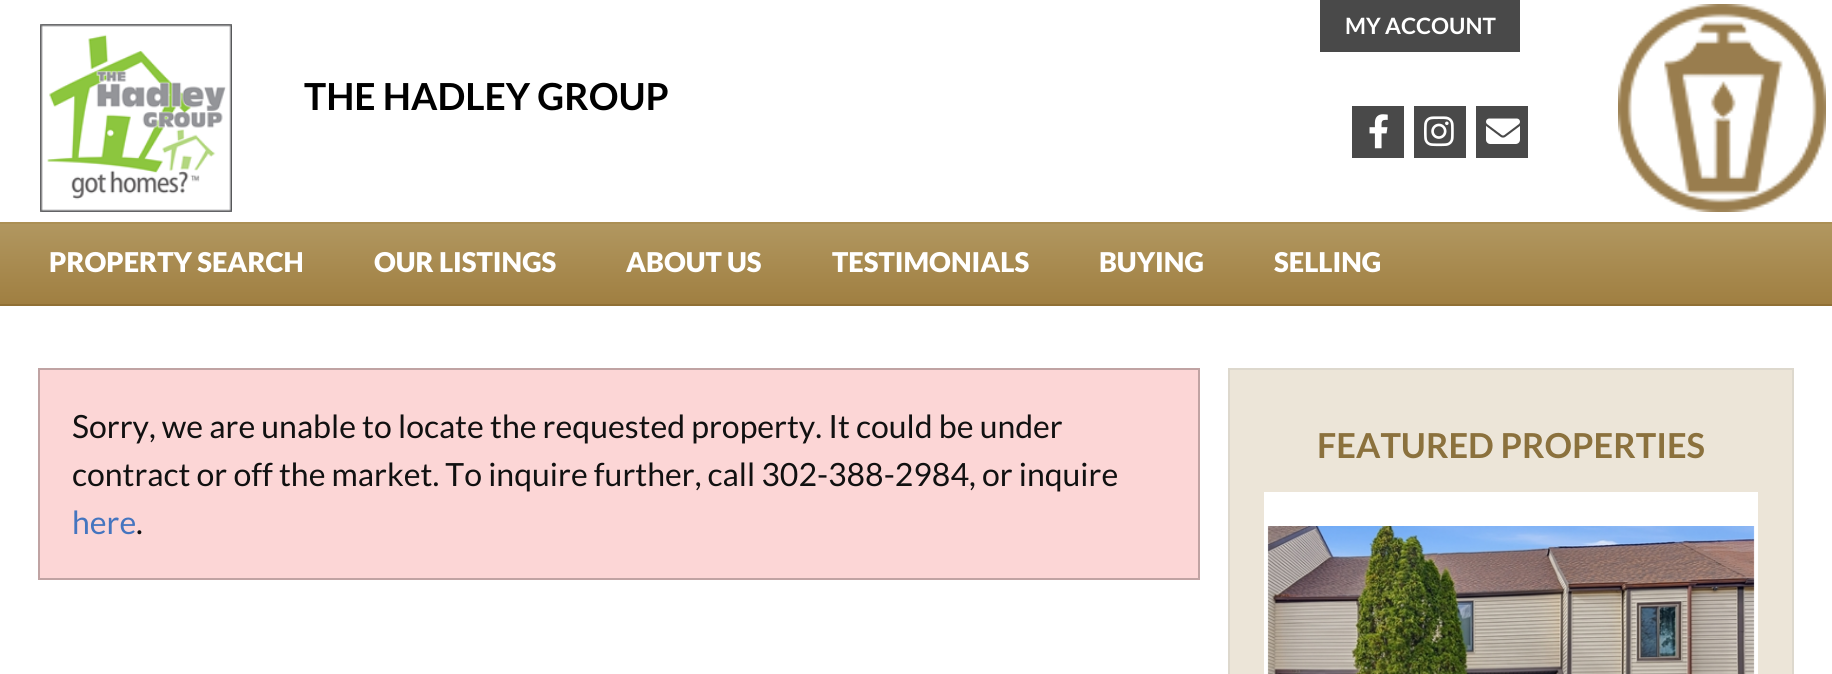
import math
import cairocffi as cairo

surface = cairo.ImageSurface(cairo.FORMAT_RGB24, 1832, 674)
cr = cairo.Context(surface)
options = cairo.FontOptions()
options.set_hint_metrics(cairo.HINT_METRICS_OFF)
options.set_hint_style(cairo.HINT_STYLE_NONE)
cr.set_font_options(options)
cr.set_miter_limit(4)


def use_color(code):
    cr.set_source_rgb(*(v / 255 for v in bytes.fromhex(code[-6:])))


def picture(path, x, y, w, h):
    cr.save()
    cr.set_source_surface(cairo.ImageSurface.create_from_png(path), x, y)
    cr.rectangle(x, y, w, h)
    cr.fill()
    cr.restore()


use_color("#ffffff")
cr.paint()
use_color("#494949")
cr.rectangle(1320, 0, 200, 52)
cr.fill()
cr.select_font_face("Lato", cairo.FONT_SLANT_NORMAL, cairo.FONT_WEIGHT_BOLD)
cr.set_font_size(22.5)
use_color("#ffffff")
cr.move_to(1345, 34)
cr.show_text("MY ACCOUNT")
picture("img1.png", 1618, 4, 208, 208)
use_color("#494949")
cr.rectangle(1352, 106, 52, 52)
cr.fill()
picture("img2.png", 1369, 114, 19, 35)
cr.rectangle(1414, 106, 52, 52)
cr.fill()
picture("img3.png", 1424, 116, 30, 31)
cr.rectangle(1476, 106, 52, 52)
cr.fill()
picture("img4.png", 1486, 118, 34, 26)
picture("img5.png", 40, 24, 192, 188)
cr.set_font_size(37.25)
use_color("#000000")
cr.move_to(304, 110)
cr.show_text("THE HADLEY GROUP")
gradient = cairo.LinearGradient(916, 224, 916, 304)
gradient.add_color_stop_rgba(0, 0.694, 0.592, 0.376, 1)
gradient.add_color_stop_rgba(1, 0.627, 0.498, 0.255, 1)
cr.set_source(gradient)
cr.rectangle(0, 224, 1832, 80)
cr.fill()
use_color("#ab8f54")
cr.rectangle(0, 222, 1832, 2)
cr.fill()
use_color("#907035")
cr.rectangle(0, 304, 1832, 2)
cr.fill()
cr.select_font_face("Lato Black")
cr.set_font_size(27.25)
use_color("#ffffff")
cr.move_to(49, 272)
cr.show_text("PROPERTY SEARCH")
cr.move_to(374, 272)
cr.show_text("OUR LISTINGS")
cr.move_to(626, 272)
cr.show_text("ABOUT US")
cr.move_to(832, 272)
cr.show_text("TESTIMONIALS")
cr.move_to(1099, 272)
cr.show_text("BUYING")
cr.move_to(1274, 272)
cr.show_text("SELLING")
use_color("#fcd6d6")
cr.rectangle(39, 369, 1160, 210)
cr.fill_preserve()
use_color("#c0a3a3")
cr.stroke()
cr.select_font_face("Lato")
cr.set_font_size(32)
use_color("#111111")
cr.move_to(72, 438)
cr.show_text("Sorry, we are unable to locate the requested property. It could be under")
cr.move_to(72, 486)
cr.show_text("contract or off the market. To inquire further, call 302-388-2984, or inquire")
use_color("#4575bf")
cr.move_to(72, 534)
cr.show_text("here")
use_color("#111111")
cr.move_to(136, 534)
cr.show_text(".")
use_color("#ece5d8")
cr.rectangle(1229, 369, 564, 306)
cr.fill_preserve()
use_color("#ddd8cd")
cr.stroke()
cr.select_font_face("Lato", cairo.FONT_SLANT_NORMAL, cairo.FONT_WEIGHT_BOLD)
cr.set_font_size(34.4)
use_color("#8b713d")
cr.move_to(1317, 458)
cr.show_text("FEATURED PROPERTIES")
use_color("#ffffff")
cr.rectangle(1264, 492, 494, 182)
cr.fill()
picture("img6.png", 1267, 526, 488, 148)
surface.write_to_png("result.png")
